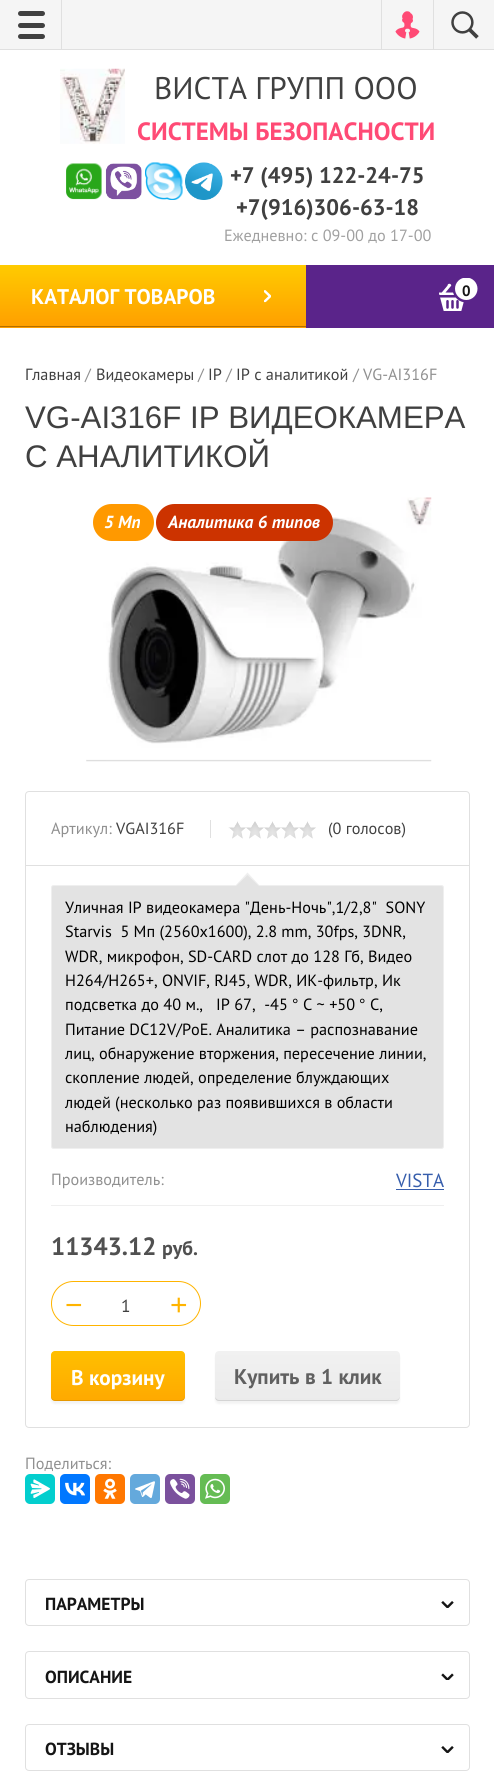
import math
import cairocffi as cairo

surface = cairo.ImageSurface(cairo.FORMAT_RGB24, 494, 1791)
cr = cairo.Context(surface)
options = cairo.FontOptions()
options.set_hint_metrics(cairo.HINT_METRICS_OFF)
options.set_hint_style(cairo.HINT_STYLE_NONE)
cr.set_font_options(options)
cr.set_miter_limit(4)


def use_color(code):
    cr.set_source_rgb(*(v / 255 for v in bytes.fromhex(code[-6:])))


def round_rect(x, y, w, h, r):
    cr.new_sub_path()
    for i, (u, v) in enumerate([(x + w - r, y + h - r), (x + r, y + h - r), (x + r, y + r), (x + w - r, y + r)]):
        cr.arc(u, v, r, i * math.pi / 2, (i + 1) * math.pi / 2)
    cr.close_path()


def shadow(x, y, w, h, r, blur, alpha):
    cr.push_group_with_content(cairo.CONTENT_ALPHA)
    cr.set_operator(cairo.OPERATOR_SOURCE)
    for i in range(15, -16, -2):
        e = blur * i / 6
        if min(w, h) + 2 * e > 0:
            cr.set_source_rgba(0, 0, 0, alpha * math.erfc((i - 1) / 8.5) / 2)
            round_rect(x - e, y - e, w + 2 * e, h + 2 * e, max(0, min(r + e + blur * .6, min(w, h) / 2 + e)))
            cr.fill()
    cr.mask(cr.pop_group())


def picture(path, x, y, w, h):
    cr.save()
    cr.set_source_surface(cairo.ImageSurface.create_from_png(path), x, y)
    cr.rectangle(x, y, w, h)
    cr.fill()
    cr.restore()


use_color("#ffffff")
cr.paint()
use_color("#f5f5f5")
cr.rectangle(0, 0, 494, 49)
cr.fill()
use_color("#e0e0e0")
cr.rectangle(0, 49, 494, 1)
cr.fill()
cr.rectangle(61, 0, 1, 50)
cr.fill()
use_color("#404040")
round_rect(18, 11, 27, 5, 2.5)
cr.fill()
round_rect(18, 23, 27, 5, 2.5)
cr.fill()
round_rect(18, 34, 27, 5, 2.5)
cr.fill()
picture("img1.png", 395, 11, 25, 28)
use_color("#e0e0e0")
cr.rectangle(381, 0, 1, 50)
cr.fill()
picture("img2.png", 451, 11, 28, 28)
cr.rectangle(433, 0, 1, 50)
cr.fill()
picture("img3.png", 60, 68, 65, 76)
cr.select_font_face("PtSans")
cr.set_font_size(31.25)
use_color("#404040")
cr.move_to(154, 99)
cr.show_text("ВИСТА ГРУПП ООО")
cr.select_font_face("PtSans", cairo.FONT_SLANT_NORMAL, cairo.FONT_WEIGHT_BOLD)
cr.set_font_size(25)
use_color("#ff4a75")
cr.move_to(137, 140)
cr.show_text("СИСТЕМЫ БЕЗОПАСНОСТИ")
picture("img4.png", 66, 163, 36, 37)
picture("img5.png", 105, 163, 37, 37)
picture("img6.png", 145, 162, 38, 38)
picture("img7.png", 185, 162, 38, 38)
cr.set_font_size(22.5)
use_color("#404040")
cr.move_to(230, 183)
cr.show_text("+7 (495) 122-24-75")
cr.move_to(236, 215)
cr.show_text("+7(916)306-63-18")
cr.select_font_face("PtSans")
cr.set_font_size(16.25)
use_color("#a0a0a0")
cr.move_to(224, 241)
cr.show_text("Ежедневно: с 09-00 до 17-00")
use_color("#5a248a")
cr.rectangle(306, 265, 188, 63)
cr.fill()
gradient = cairo.LinearGradient(153, 328, 153, 265)
gradient.add_color_stop_rgba(0, 1, 0.62, 0, 1)
gradient.add_color_stop_rgba(1, 1, 0.796, 0, 1)
cr.set_source(gradient)
cr.rectangle(0, 265, 306, 63)
cr.fill()
use_color("#b36f00")
cr.rectangle(0, 326, 306, 1)
cr.fill()
cr.select_font_face("PtSans", cairo.FONT_SLANT_NORMAL, cairo.FONT_WEIGHT_BOLD)
cr.set_font_size(21.25)
use_color("#ffffff")
cr.move_to(31, 304)
cr.show_text("КАТАЛОГ ТОВАРОВ")
picture("img8.png", 264, 290, 7, 13)
picture("img9.png", 439, 278, 39, 33)
cr.set_font_size(15)
use_color("#151515")
cr.move_to(462, 296)
cr.show_text("0")
cr.select_font_face("PtSans")
cr.set_font_size(16.25)
use_color("#404040")
cr.move_to(25, 380)
cr.show_text("Главная")
use_color("#909090")
cr.move_to(85, 380)
cr.show_text("/")
use_color("#404040")
cr.move_to(96, 380)
cr.show_text("Видеокамеры")
use_color("#909090")
cr.move_to(198, 380)
cr.show_text("/")
use_color("#404040")
cr.move_to(208, 380)
cr.show_text("IP")
use_color("#909090")
cr.move_to(226, 380)
cr.show_text("/")
use_color("#404040")
cr.move_to(236, 380)
cr.show_text("IP с аналитикой")
use_color("#909090")
cr.move_to(353, 380)
cr.show_text("/ VG-AI316F")
cr.select_font_face("Liberation Sans")
cr.set_font_size(31.25)
use_color("#404040")
cr.move_to(25, 428)
cr.show_text("VG-AI316F IP ВИДЕОКАМЕРА")
cr.move_to(25, 467)
cr.show_text("С АНАЛИТИКОЙ")
picture("img10.png", 86, 497, 346, 265)
use_color("#ff9900")
round_rect(93, 504, 61, 37, 18.5)
cr.fill()
cr.select_font_face("PtSans", cairo.FONT_SLANT_ITALIC, cairo.FONT_WEIGHT_BOLD)
cr.set_font_size(17.5)
use_color("#ffffff")
cr.move_to(104, 528)
cr.show_text("5 Мп")
use_color("#cc3300")
round_rect(156, 504, 177, 37, 18.5)
cr.fill()
use_color("#ffffff")
cr.move_to(168, 528)
cr.show_text("Аналитика 6 типов")
round_rect(25.5, 791.5, 444, 636, 3.5)
use_color("#e0e0e0")
cr.set_line_width(1)
cr.stroke()
cr.rectangle(26, 865, 443, 1)
cr.fill()
cr.rectangle(210, 820, 1, 18)
cr.fill()
cr.select_font_face("PtSans")
cr.set_font_size(16.25)
use_color("#909090")
cr.move_to(51, 834)
cr.show_text("Артикул:")
use_color("#404040")
cr.move_to(116, 834)
cr.show_text("VGAI316F")
picture("img11.png", 228, 821, 88, 18)
cr.move_to(328, 834)
cr.show_text("(0 голосов)")
use_color("#e3e3e3")
round_rect(51.5, 885.5, 392, 263, 2)
cr.fill_preserve()
use_color("#efefef")
cr.stroke()
cr.new_path()
cr.move_to(260, 886)
cr.line_to(235, 886)
cr.line_to(247.5, 872.5)
cr.close_path()
cr.fill()
use_color("#e3e3e3")
cr.new_path()
cr.move_to(259, 886)
cr.line_to(236, 886)
cr.line_to(247.5, 875)
cr.close_path()
cr.fill()
use_color("#000000")
cr.move_to(65, 913)
cr.show_text("Уличная IP видеокамера \"День-Ночь\",1/2,8\"  SONY")
cr.move_to(65, 937)
cr.show_text("Starvis  5 Мп (2560х1600), 2.8 mm, 30fps, 3DNR,")
cr.move_to(65, 962)
cr.show_text("WDR, микрофон, SD-CARD слот до 128 Гб, Видео")
cr.move_to(65, 986)
cr.show_text("H264/H265+, ONVIF, RJ45, WDR, ИК-фильтр, Ик")
cr.move_to(65, 1010)
cr.show_text("подсветка до 40 м.,   IP 67,  -45")
cr.select_font_face("Liberation Sans")
cr.move_to(292, 1010)
cr.show_text("°")
cr.select_font_face("PtSans")
cr.move_to(303, 1010)
cr.show_text("C ~ +50")
cr.select_font_face("Liberation Sans")
cr.move_to(359, 1010)
cr.show_text("°")
cr.select_font_face("PtSans")
cr.move_to(370, 1010)
cr.show_text("C,")
cr.move_to(65, 1035)
cr.show_text("Питание DC12V/PoE. Аналитика – распознавание")
cr.move_to(65, 1059)
cr.show_text("лиц, обнаружение вторжения, пересечение линии,")
cr.move_to(65, 1083)
cr.show_text("скопление людей, определение блуждающих")
cr.move_to(65, 1108)
cr.show_text("людей (несколько раз появившихся в области")
cr.move_to(65, 1132)
cr.show_text("наблюдения)")
use_color("#efefef")
cr.rectangle(51, 1205, 393, 1)
cr.fill()
use_color("#909090")
cr.move_to(51, 1185)
cr.show_text("Производитель:")
cr.set_font_size(19)
use_color("#375eac")
cr.move_to(396, 1187)
cr.show_text("VISTA")
cr.rectangle(396, 1189, 48, 1)
cr.fill()
cr.select_font_face("PtSans", cairo.FONT_SLANT_NORMAL, cairo.FONT_WEIGHT_BOLD)
cr.set_font_size(25)
use_color("#505050")
cr.move_to(51, 1255)
cr.show_text("11343.12")
cr.set_font_size(20)
cr.move_to(162, 1255)
cr.show_text("руб.")
round_rect(51.5, 1281.5, 149, 44, 22)
use_color("#ffb400")
cr.stroke()
cr.select_font_face("Liberation Sans")
cr.set_font_size(30)
cr.move_to(65, 1315)
cr.show_text("−")
cr.select_font_face("PtSans")
cr.set_font_size(17.5)
use_color("#404040")
cr.move_to(121, 1312)
cr.show_text("1")
cr.select_font_face("Liberation Sans")
cr.set_font_size(30)
use_color("#ffb400")
cr.move_to(170, 1315)
cr.show_text("+")
use_color("#000000")
shadow(51, 1354, 134, 50, 4, 1, 0.05)
gradient = cairo.LinearGradient(118, 1401, 118, 1351)
gradient.add_color_stop_rgba(0, 1, 0.663, 0, 1)
gradient.add_color_stop_rgba(1, 1, 0.749, 0, 1)
cr.set_source(gradient)
round_rect(51, 1351, 134, 50, 4)
cr.fill()
cr.set_source_rgba(0, 0, 0, 0.1)
cr.new_path()
cr.move_to(51, 1396)
cr.line_to(51, 1397)
cr.curve_to(51, 1399, 53, 1401, 55, 1401)
cr.line_to(181, 1401)
cr.curve_to(183, 1401, 185, 1399, 185, 1397)
cr.line_to(185, 1396)
cr.curve_to(185, 1398, 183, 1400, 181, 1400)
cr.line_to(55, 1400)
cr.curve_to(53, 1400, 51, 1398, 51, 1396)
cr.close_path()
cr.fill()
cr.select_font_face("PtSans", cairo.FONT_SLANT_NORMAL, cairo.FONT_WEIGHT_BOLD)
cr.set_font_size(21.25)
use_color("#ffffff")
cr.move_to(71, 1385)
cr.show_text("В корзину")
use_color("#000000")
shadow(215, 1354, 185, 50, 4, 1, 0.05)
gradient = cairo.LinearGradient(308, 1401, 308, 1351)
gradient.add_color_stop_rgba(0, 0.922, 0.922, 0.922, 1)
gradient.add_color_stop_rgba(1, 0.945, 0.945, 0.945, 1)
cr.set_source(gradient)
round_rect(215, 1351, 185, 50, 4)
cr.fill()
cr.set_source_rgba(0, 0, 0, 0.1)
cr.new_path()
cr.move_to(215, 1396)
cr.curve_to(215, 1399, 216, 1401, 219, 1401)
cr.line_to(397, 1401)
cr.curve_to(399, 1400, 400, 1398, 400, 1396)
cr.curve_to(400, 1398, 398, 1400, 396, 1400)
cr.line_to(219, 1400)
cr.curve_to(217, 1400, 215, 1398, 215, 1396)
cr.close_path()
cr.fill()
use_color("#606060")
cr.move_to(234, 1384)
cr.show_text("Купить в 1 клик")
cr.select_font_face("PtSans")
cr.set_font_size(16.25)
use_color("#909090")
cr.move_to(25, 1469)
cr.show_text("Поделиться:")
use_color("#03cece")
round_rect(25, 1474, 30, 30, 5)
cr.fill()
picture("img12.png", 30, 1479, 20, 19)
use_color("#0077ff")
round_rect(60, 1474, 30, 30, 5)
cr.fill()
picture("img13.png", 65, 1482, 20, 14)
use_color("#ff7700")
round_rect(95, 1474, 30, 30, 5)
cr.fill()
picture("img14.png", 103, 1478, 14, 21)
use_color("#64a9dc")
round_rect(130, 1474, 30, 30, 5)
cr.fill()
picture("img15.png", 135, 1481, 20, 17)
use_color("#7b519d")
round_rect(165, 1474, 30, 30, 5)
cr.fill()
picture("img16.png", 170, 1478, 20, 21)
use_color("#65bc54")
round_rect(200, 1474, 30, 30, 5)
cr.fill()
picture("img17.png", 205, 1478, 20, 21)
round_rect(25.5, 1579.5, 444, 46, 3.5)
use_color("#e0e0e0")
cr.stroke()
cr.select_font_face("PtSans", cairo.FONT_SLANT_NORMAL, cairo.FONT_WEIGHT_BOLD)
cr.set_font_size(17.5)
use_color("#151515")
cr.move_to(45, 1610)
cr.show_text("ПАРАМЕТРЫ")
picture("img18.png", 441, 1601, 13, 7)
round_rect(25.5, 1651.5, 444, 47, 3.5)
use_color("#e0e0e0")
cr.stroke()
use_color("#151515")
cr.move_to(45, 1683)
cr.show_text("ОПИСАНИЕ")
picture("img19.png", 441, 1673, 13, 7)
round_rect(25.5, 1724.5, 444, 46, 3.5)
use_color("#e0e0e0")
cr.stroke()
use_color("#151515")
cr.move_to(45, 1755)
cr.show_text("ОТЗЫВЫ")
picture("img18.png", 441, 1746, 13, 7)
surface.write_to_png("result.png")
